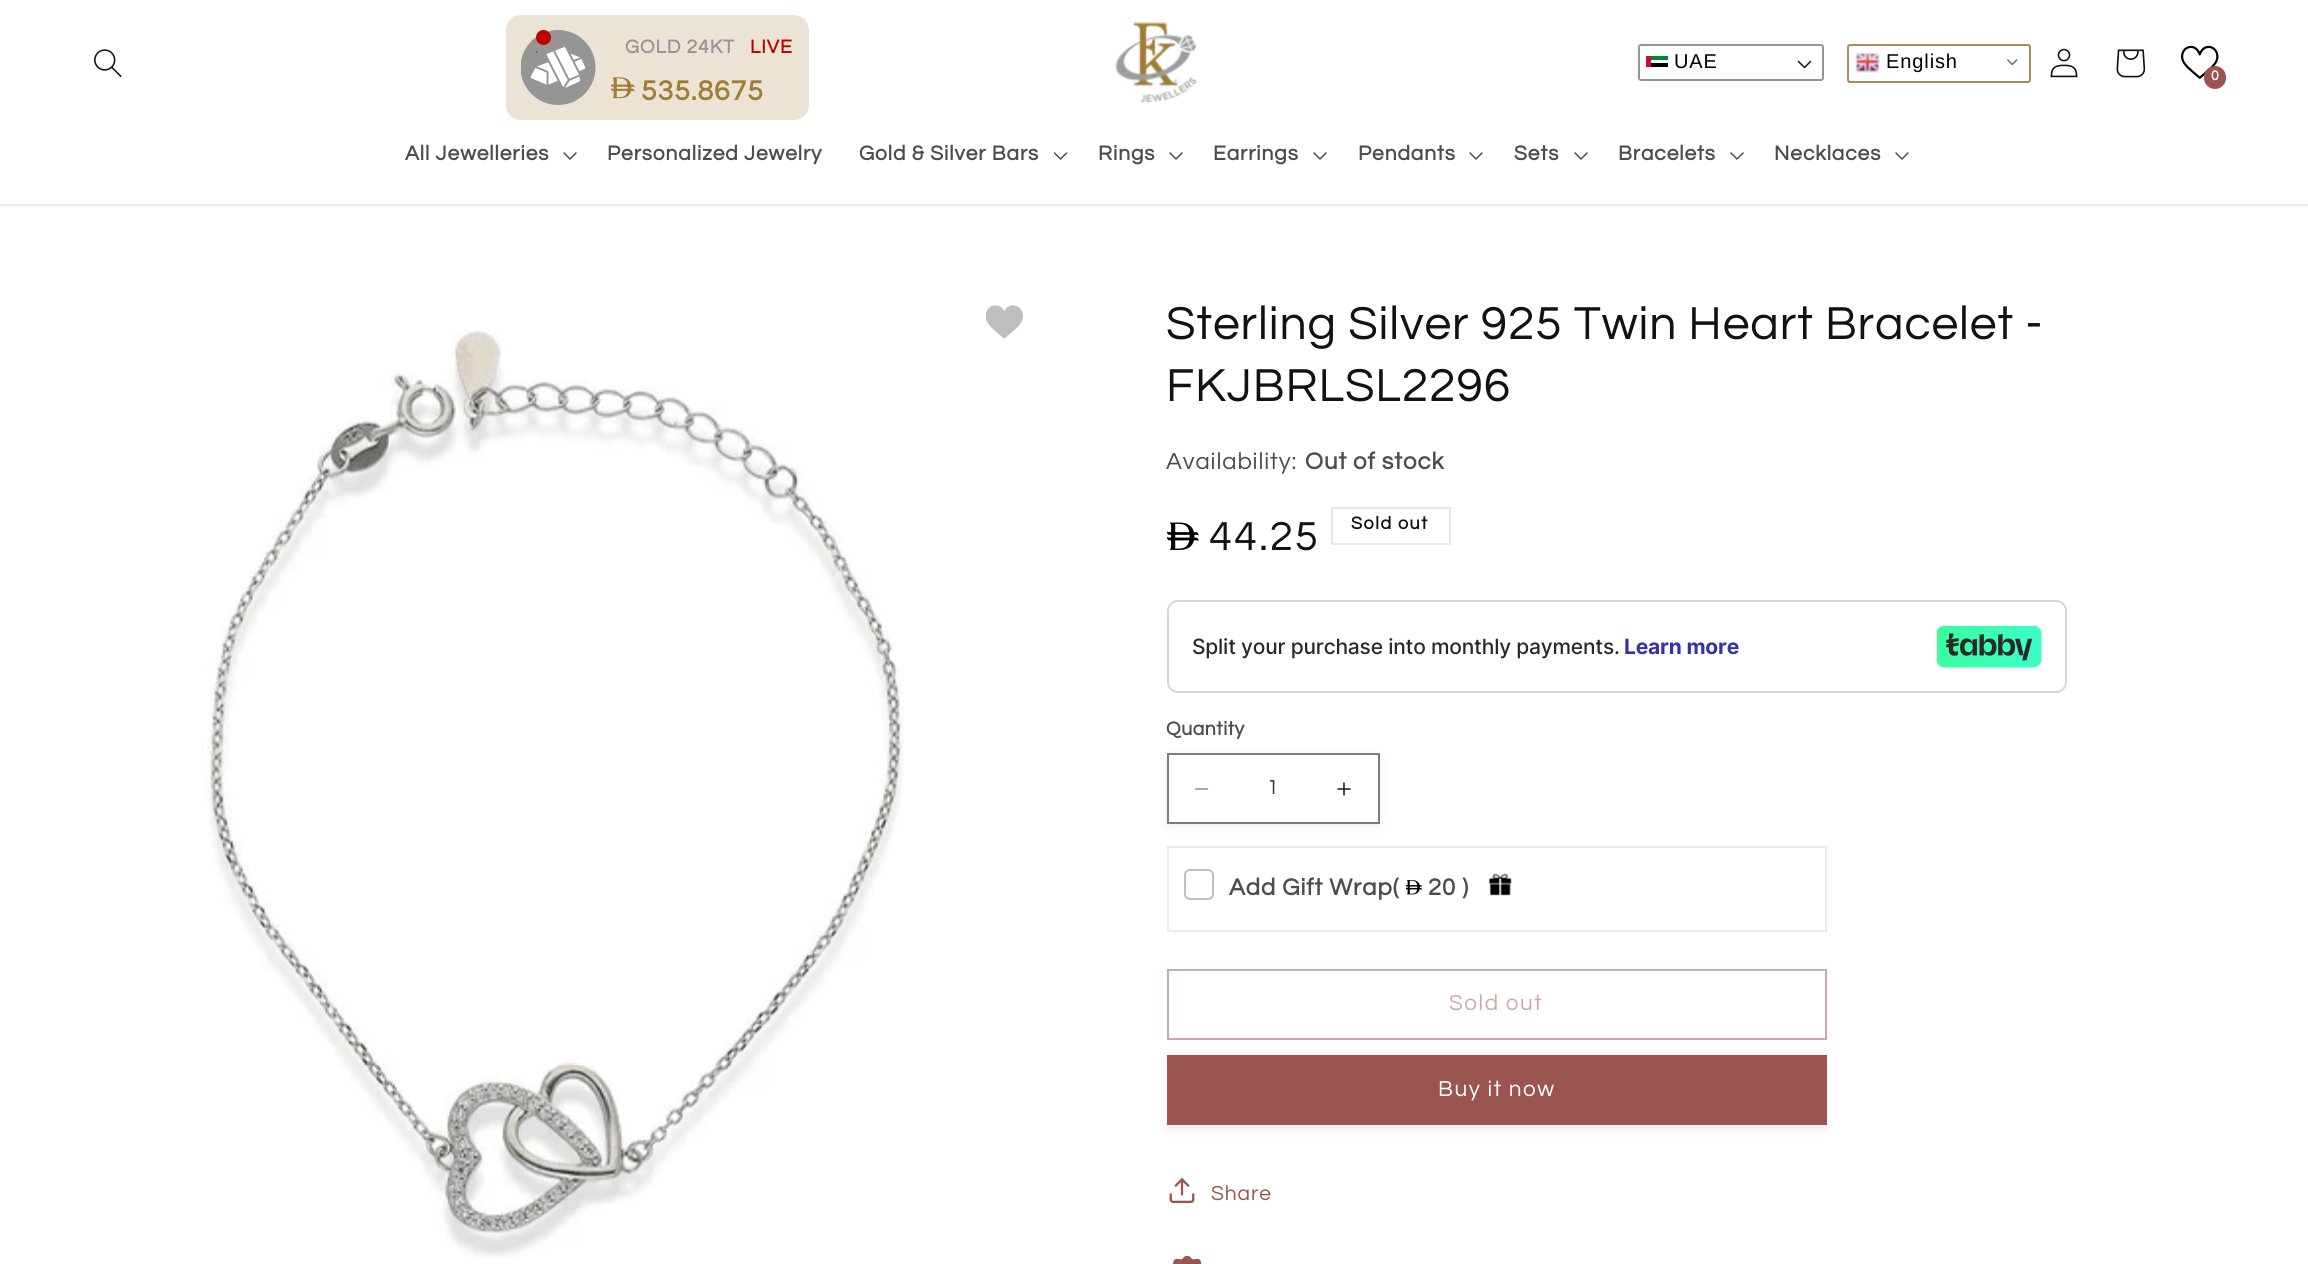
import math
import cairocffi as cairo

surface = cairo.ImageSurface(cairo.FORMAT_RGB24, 2308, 1264)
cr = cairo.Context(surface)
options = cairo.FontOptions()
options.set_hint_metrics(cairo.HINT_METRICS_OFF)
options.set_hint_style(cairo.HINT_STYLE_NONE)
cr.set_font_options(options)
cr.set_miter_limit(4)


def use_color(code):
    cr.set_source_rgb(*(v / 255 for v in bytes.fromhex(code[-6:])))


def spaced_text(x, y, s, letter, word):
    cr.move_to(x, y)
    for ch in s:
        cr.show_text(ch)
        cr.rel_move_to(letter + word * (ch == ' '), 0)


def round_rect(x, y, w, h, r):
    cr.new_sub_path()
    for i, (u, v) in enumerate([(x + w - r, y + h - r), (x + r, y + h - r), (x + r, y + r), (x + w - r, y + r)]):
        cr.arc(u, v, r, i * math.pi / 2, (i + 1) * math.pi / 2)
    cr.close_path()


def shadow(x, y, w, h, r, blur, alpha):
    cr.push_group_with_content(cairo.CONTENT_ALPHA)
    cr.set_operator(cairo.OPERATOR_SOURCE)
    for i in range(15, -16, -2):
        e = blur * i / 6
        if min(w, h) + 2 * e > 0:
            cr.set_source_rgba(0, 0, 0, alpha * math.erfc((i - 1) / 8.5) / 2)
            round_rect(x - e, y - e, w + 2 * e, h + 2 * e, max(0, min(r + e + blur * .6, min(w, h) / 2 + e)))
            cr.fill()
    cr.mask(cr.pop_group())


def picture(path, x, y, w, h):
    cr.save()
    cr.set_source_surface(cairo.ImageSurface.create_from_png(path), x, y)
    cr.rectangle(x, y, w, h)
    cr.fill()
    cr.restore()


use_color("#ffffff")
cr.paint()
use_color("#ececec")
cr.rectangle(0, 204, 2308, 2)
cr.fill()
picture("img1.png", 94, 49, 28, 28)
use_color("#ebe4d5")
round_rect(506, 15, 303, 105, 15)
cr.fill()
picture("img2.png", 521, 30, 75, 75)
use_color("#bd0000")
cr.arc(543.5, 37.5, 7.5, 0, 2 * math.pi)
cr.fill()
cr.select_font_face("Questrial")
cr.set_font_size(19.5)
use_color("#337ab7")
spaced_text(535, 53, ".", 0.9, 0)
cr.select_font_face("Questrial", cairo.FONT_SLANT_NORMAL, cairo.FONT_WEIGHT_BOLD)
use_color("#959595")
spaced_text(625, 53, "GOLD 24KT", 0.9, 0)
use_color("#bd0000")
spaced_text(750, 53, "LIVE", 0.9, 0)
picture("img3.png", 611, 77, 24, 22)
cr.set_font_size(28.5)
use_color("#9e7d35")
spaced_text(641, 100, "535.8675", 0.9, 0)
picture("img4.png", 1115, 22, 83, 81)
round_rect(1639, 45, 184, 35, 2)
use_color("#959595")
cr.stroke()
use_color("#000000")
cr.rectangle(1646, 63, 22, 4)
cr.fill()
use_color("#c8102e")
cr.rectangle(1646, 56, 5, 11)
cr.fill()
use_color("#00843d")
cr.rectangle(1651, 56, 17, 4)
cr.fill()
cr.select_font_face("Liberation Sans")
cr.set_font_size(20)
use_color("#000000")
spaced_text(1674, 68, "UAE", 0.9, 0)
picture("img5.png", 1797, 60, 15, 9)
round_rect(1848, 45, 182, 37, 2)
use_color("#a68d57")
cr.stroke()
picture("img6.png", 1855, 52, 25, 21)
use_color("#000000")
spaced_text(1886, 68, "English", 0.9, 0)
picture("img7.png", 2007, 59, 11, 7)
picture("img8.png", 2050, 48, 28, 30)
picture("img9.png", 2116, 49, 30, 29)
picture("img10.png", 2181, 45, 38, 34)
use_color("#9a5550")
round_rect(2204, 66, 22, 23, 11)
cr.fill()
cr.select_font_face("Questrial", cairo.FONT_SLANT_NORMAL, cairo.FONT_WEIGHT_BOLD)
cr.set_font_size(14)
use_color("#ffffff")
spaced_text(2211, 80, "0", 0.9, 0)
cr.set_font_size(21)
use_color("#4d4d4d")
spaced_text(405, 160, "All Jewelleries", 0.9, 0)
picture("img11.png", 563, 152, 14, 8)
spaced_text(607, 160, "Personalized Jewelry", 0.9, 0)
spaced_text(859, 160, "Gold & Silver Bars", 0.9, 0)
picture("img12.png", 1053, 152, 15, 8)
spaced_text(1098, 160, "Rings", 0.9, 0)
picture("img11.png", 1169, 152, 14, 8)
spaced_text(1213, 160, "Earrings", 0.9, 0)
picture("img11.png", 1313, 152, 14, 8)
spaced_text(1358, 160, "Pendants", 0.9, 0)
picture("img11.png", 1469, 152, 14, 8)
spaced_text(1514, 160, "Sets", 0.9, 0)
picture("img11.png", 1574, 152, 14, 8)
spaced_text(1618, 160, "Bracelets", 0.9, 0)
picture("img11.png", 1730, 152, 14, 8)
spaced_text(1774, 160, "Necklaces", 0.9, 0)
picture("img11.png", 1895, 152, 14, 8)
picture("img13.png", 986, 305, 37, 34)
picture("img14.png", 202, 330, 702, 928)
cr.select_font_face("Questrial")
cr.set_font_size(48)
use_color("#121212")
spaced_text(1166, 339, "Sterling Silver 925 Twin Heart Bracelet -", 0.9, 0)
spaced_text(1166, 401, "FKJBRLSL2296", 0.9, 0)
cr.set_font_size(24)
use_color("#4d4d4d")
spaced_text(1166, 469, "Availability:", 0.9, 0)
cr.select_font_face("Questrial", cairo.FONT_SLANT_NORMAL, cairo.FONT_WEIGHT_BOLD)
spaced_text(1305, 469, "Out of stock", 0.9, 0)
picture("img15.png", 1167, 522, 32, 28)
cr.select_font_face("Questrial")
cr.set_font_size(42)
use_color("#121212")
spaced_text(1209, 550, "44.25", 2, 0)
cr.rectangle(1332, 508, 118, 36)
use_color("#e7e7e7")
cr.stroke()
cr.select_font_face("Questrial", cairo.FONT_SLANT_NORMAL, cairo.FONT_WEIGHT_BOLD)
cr.set_font_size(18)
use_color("#121212")
spaced_text(1351, 529, "Sold out", 1.5, 0)
round_rect(1168, 601, 898, 91, 10)
use_color("#d6d6d3")
cr.stroke()
cr.select_font_face("Inter Medium")
cr.set_font_size(21)
use_color("#292929")
spaced_text(1192, 654, "Split your purchase into monthly payments.", -0.2, 0)
cr.select_font_face("Inter", cairo.FONT_SLANT_NORMAL, cairo.FONT_WEIGHT_BOLD)
use_color("#3533ac")
spaced_text(1624, 654, "Learn more", -0.2, 0)
picture("img16.png", 1937, 626, 105, 42)
cr.select_font_face("Questrial", cairo.FONT_SLANT_NORMAL, cairo.FONT_WEIGHT_BOLD)
cr.set_font_size(19.5)
use_color("#4d4d4d")
spaced_text(1166, 735, "Quantity", 0.5, 0)
use_color("#9a5550")
shadow(1167, 756, 213, 71, 0, 4, 0.1)
use_color("#ffffff")
cr.rectangle(1169, 755, 209, 67)
cr.fill()
picture("img17.png", 1194, 788, 15, 2)
picture("img18.png", 1337, 782, 14, 14)
cr.rectangle(1168, 754, 211, 69)
use_color("#7d7d7d")
cr.stroke()
cr.select_font_face("Questrial")
cr.set_font_size(21)
use_color("#363636")
cr.move_to(1267, 794)
cr.show_text("1")
cr.rectangle(1168, 847, 658, 84)
use_color("#ebebeb")
cr.stroke()
round_rect(1185, 870, 28, 29, 5)
use_color("#bdc1c6")
cr.stroke()
cr.select_font_face("Questrial", cairo.FONT_SLANT_NORMAL, cairo.FONT_WEIGHT_BOLD)
cr.set_font_size(24)
use_color("#4d4d4d")
spaced_text(1229, 895, "Add Gift Wrap(", 0.9, 0)
picture("img19.png", 1406, 880, 16, 15)
spaced_text(1428, 895, "20 )", 0.9, 0)
picture("img20.png", 1488, 873, 24, 23)
cr.rectangle(1168, 970, 658, 69)
use_color("#cdaaa8")
cr.stroke()
cr.select_font_face("Questrial")
cr.set_font_size(22.5)
spaced_text(1449, 1010, "Sold out", 1.5, 0)
use_color("#9a5550")
shadow(1167, 1061, 660, 70, 0, 4, 0.1)
use_color("#9a5550")
cr.rectangle(1167, 1055, 660, 70)
cr.fill()
use_color("#ffffff")
spaced_text(1438, 1096, "Buy it now", 1.5, 0)
picture("img21.png", 1169, 1178, 26, 26)
cr.set_font_size(21)
use_color("#9a5550")
spaced_text(1211, 1200, "Share", 0.9, 0)
picture("img22.png", 1173, 1256, 29, 8)
surface.write_to_png("result.png")
